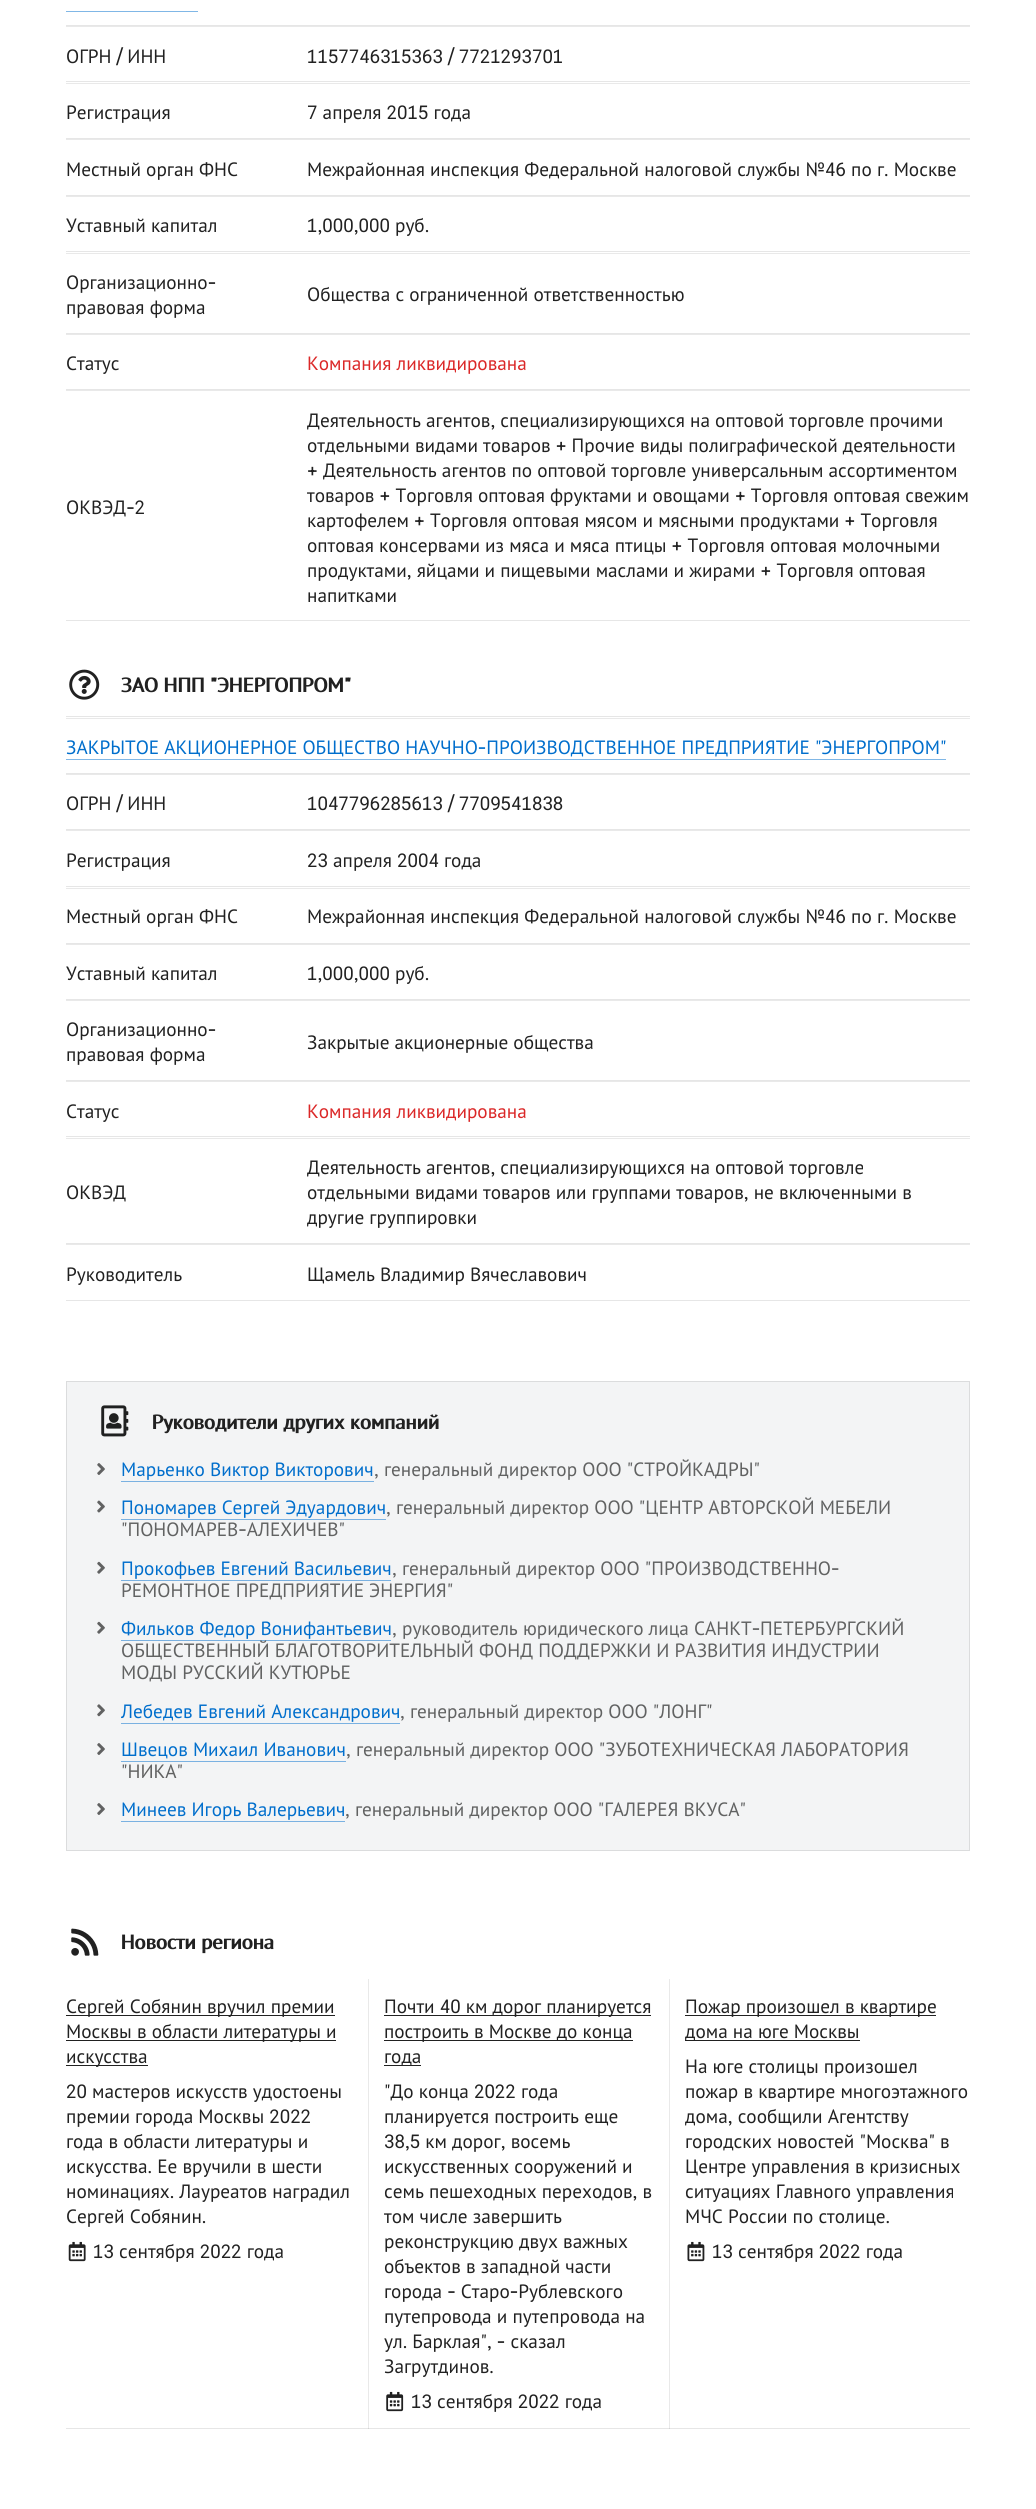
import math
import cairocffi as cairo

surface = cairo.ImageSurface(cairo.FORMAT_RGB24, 1036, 2509)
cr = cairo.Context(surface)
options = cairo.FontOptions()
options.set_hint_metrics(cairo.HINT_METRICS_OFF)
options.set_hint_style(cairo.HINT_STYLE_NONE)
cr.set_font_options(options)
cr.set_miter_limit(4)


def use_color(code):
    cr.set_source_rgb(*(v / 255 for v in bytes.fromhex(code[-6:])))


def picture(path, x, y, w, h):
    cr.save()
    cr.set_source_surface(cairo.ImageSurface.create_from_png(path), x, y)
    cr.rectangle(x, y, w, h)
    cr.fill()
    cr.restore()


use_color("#ffffff")
cr.paint()
use_color("#e9e9e9")
cr.rectangle(669, 1979, 1, 450)
cr.fill()
cr.rectangle(368, 1979, 1, 450)
cr.fill()
use_color("#e6e6e6")
cr.rectangle(66, 25, 904, 1)
cr.fill()
use_color("#80b7e6")
cr.rectangle(66, 11, 132, 1)
cr.fill()
use_color("#e6e6e6")
cr.rectangle(66, 81, 904, 1)
cr.fill()
use_color("#e9e9e9")
cr.rectangle(66, 26, 904, 1)
cr.fill()
cr.select_font_face("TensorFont")
cr.set_font_size(19.25)
use_color("#212121")
cr.move_to(66, 63)
cr.show_text("ОГРН / ИНН")
cr.move_to(307, 63)
cr.show_text("1157746315363 / 7721293701")
use_color("#e6e6e6")
cr.rectangle(66, 138, 904, 1)
cr.fill()
use_color("#e9e9e9")
cr.rectangle(66, 83, 904, 1)
cr.fill()
use_color("#212121")
cr.move_to(66, 119)
cr.show_text("Регистрация")
cr.move_to(307, 119)
cr.show_text("7 апреля 2015 года")
use_color("#e6e6e6")
cr.rectangle(66, 195, 904, 1)
cr.fill()
use_color("#e9e9e9")
cr.rectangle(66, 139, 904, 1)
cr.fill()
use_color("#212121")
cr.move_to(66, 176)
cr.show_text("Местный орган ФНС")
cr.move_to(307, 176)
cr.show_text("Межрайонная инспекция Федеральной налоговой службы №46 по г. Москве")
use_color("#e6e6e6")
cr.rectangle(66, 251, 904, 1)
cr.fill()
use_color("#e9e9e9")
cr.rectangle(66, 196, 904, 1)
cr.fill()
use_color("#212121")
cr.move_to(66, 232)
cr.show_text("Уставный капитал")
cr.move_to(307, 232)
cr.show_text("1,000,000 руб.")
use_color("#e6e6e6")
cr.rectangle(66, 333, 904, 1)
cr.fill()
use_color("#e9e9e9")
cr.rectangle(66, 253, 904, 1)
cr.fill()
use_color("#212121")
cr.move_to(66, 289)
cr.show_text("Организационно-")
cr.move_to(66, 314)
cr.show_text("правовая форма")
cr.move_to(307, 301)
cr.show_text("Общества с ограниченной ответственностью")
use_color("#e6e6e6")
cr.rectangle(66, 389, 904, 1)
cr.fill()
use_color("#e9e9e9")
cr.rectangle(66, 334, 904, 1)
cr.fill()
use_color("#212121")
cr.move_to(66, 370)
cr.show_text("Статус")
use_color("#db2828")
cr.move_to(307, 370)
cr.show_text("Компания ликвидирована")
use_color("#e6e6e6")
cr.rectangle(66, 620, 904, 1)
cr.fill()
use_color("#e9e9e9")
cr.rectangle(66, 390, 904, 1)
cr.fill()
use_color("#212121")
cr.move_to(66, 514)
cr.show_text("ОКВЭД-2")
cr.move_to(307, 427)
cr.show_text("Деятельность агентов, специализирующихся на оптовой торговле прочими")
cr.move_to(307, 452)
cr.show_text("отдельными видами товаров + Прочие виды полиграфической деятельности")
cr.move_to(307, 477)
cr.show_text("+ Деятельность агентов по оптовой торговле универсальным ассортиментом")
cr.move_to(307, 502)
cr.show_text("товаров + Торговля оптовая фруктами и овощами + Торговля оптовая свежим")
cr.move_to(307, 527)
cr.show_text("картофелем + Торговля оптовая мясом и мясными продуктами + Торговля")
cr.move_to(307, 552)
cr.show_text("оптовая консервами из мяса и мяса птицы + Торговля оптовая молочными")
cr.move_to(307, 577)
cr.show_text("продуктами, яйцами и пищевыми маслами и жирами + Торговля оптовая")
cr.move_to(307, 602)
cr.show_text("напитками")
use_color("#e6e6e6")
cr.rectangle(66, 716, 904, 1)
cr.fill()
picture("img1.png", 69, 669, 31, 31)
cr.select_font_face("TensorFont", cairo.FONT_SLANT_NORMAL, cairo.FONT_WEIGHT_BOLD)
cr.set_font_size(20.6)
use_color("#212121")
cr.move_to(121, 692)
cr.show_text("ЗАО НПП \"ЭНЕРГОПРОМ\"")
use_color("#e6e6e6")
cr.rectangle(66, 773, 904, 1)
cr.fill()
use_color("#e9e9e9")
cr.rectangle(66, 718, 904, 1)
cr.fill()
cr.select_font_face("TensorFont")
cr.set_font_size(19.25)
use_color("#006ecc")
cr.move_to(66, 754)
cr.show_text("ЗАКРЫТОЕ АКЦИОНЕРНОЕ ОБЩЕСТВО НАУЧНО-ПРОИЗВОДСТВЕННОЕ ПРЕДПРИЯТИЕ \"ЭНЕРГОПРОМ\"")
use_color("#80b7e6")
cr.rectangle(66, 759, 880, 1)
cr.fill()
use_color("#e6e6e6")
cr.rectangle(66, 829, 904, 1)
cr.fill()
use_color("#e9e9e9")
cr.rectangle(66, 774, 904, 1)
cr.fill()
use_color("#212121")
cr.move_to(66, 810)
cr.show_text("ОГРН / ИНН")
cr.move_to(307, 810)
cr.show_text("1047796285613 / 7709541838")
use_color("#e6e6e6")
cr.rectangle(66, 886, 904, 1)
cr.fill()
use_color("#e9e9e9")
cr.rectangle(66, 830, 904, 1)
cr.fill()
use_color("#212121")
cr.move_to(66, 867)
cr.show_text("Регистрация")
cr.move_to(307, 867)
cr.show_text("23 апреля 2004 года")
use_color("#e6e6e6")
cr.rectangle(66, 943, 904, 1)
cr.fill()
use_color("#e9e9e9")
cr.rectangle(66, 888, 904, 1)
cr.fill()
use_color("#212121")
cr.move_to(66, 923)
cr.show_text("Местный орган ФНС")
cr.move_to(307, 923)
cr.show_text("Межрайонная инспекция Федеральной налоговой службы №46 по г. Москве")
use_color("#e6e6e6")
cr.rectangle(66, 999, 904, 1)
cr.fill()
use_color("#e9e9e9")
cr.rectangle(66, 944, 904, 1)
cr.fill()
use_color("#212121")
cr.move_to(66, 980)
cr.show_text("Уставный капитал")
cr.move_to(307, 980)
cr.show_text("1,000,000 руб.")
use_color("#e6e6e6")
cr.rectangle(66, 1080, 904, 1)
cr.fill()
use_color("#e9e9e9")
cr.rectangle(66, 1000, 904, 1)
cr.fill()
use_color("#212121")
cr.move_to(66, 1036)
cr.show_text("Организационно-")
cr.move_to(66, 1061)
cr.show_text("правовая форма")
cr.move_to(307, 1049)
cr.show_text("Закрытые акционерные общества")
use_color("#e6e6e6")
cr.rectangle(66, 1136, 904, 1)
cr.fill()
use_color("#e9e9e9")
cr.rectangle(66, 1081, 904, 1)
cr.fill()
use_color("#212121")
cr.move_to(66, 1118)
cr.show_text("Статус")
use_color("#db2828")
cr.move_to(307, 1118)
cr.show_text("Компания ликвидирована")
use_color("#e6e6e6")
cr.rectangle(66, 1243, 904, 1)
cr.fill()
use_color("#e9e9e9")
cr.rectangle(66, 1138, 904, 1)
cr.fill()
use_color("#212121")
cr.move_to(66, 1199)
cr.show_text("ОКВЭД")
cr.move_to(307, 1174)
cr.show_text("Деятельность агентов, специализирующихся на оптовой торговле")
cr.move_to(307, 1199)
cr.show_text("отдельными видами товаров или группами товаров, не включенными в")
cr.move_to(307, 1224)
cr.show_text("другие группировки")
use_color("#e6e6e6")
cr.rectangle(66, 1300, 904, 1)
cr.fill()
use_color("#e9e9e9")
cr.rectangle(66, 1244, 904, 1)
cr.fill()
use_color("#212121")
cr.move_to(66, 1281)
cr.show_text("Руководитель")
cr.move_to(307, 1281)
cr.show_text("Щамель Владимир Вячеславович")
use_color("#f3f4f5")
cr.rectangle(66.5, 1381.5, 903, 469)
cr.fill_preserve()
use_color("#dbdcdd")
cr.set_line_width(1)
cr.stroke()
picture("img2.png", 101, 1405, 28, 32)
cr.select_font_face("TensorFont", cairo.FONT_SLANT_NORMAL, cairo.FONT_WEIGHT_BOLD)
cr.set_font_size(20.6)
use_color("#212121")
cr.move_to(152, 1429)
cr.show_text("Руководители других компаний")
picture("img3.png", 97, 1463, 8, 12)
cr.select_font_face("TensorFont")
cr.set_font_size(19.25)
use_color("#006ecc")
cr.move_to(121, 1476)
cr.show_text("Марьенко Виктор Викторович")
use_color("#7ab1e1")
cr.rectangle(121, 1481, 253, 1)
cr.fill()
use_color("#616262")
cr.move_to(374, 1476)
cr.show_text(", генеральный директор ООО \"СТРОЙКАДРЫ\"")
picture("img4.png", 97, 1500, 8, 13)
use_color("#006ecc")
cr.move_to(121, 1514)
cr.show_text("Пономарев Сергей Эдуардович")
use_color("#7ab1e1")
cr.rectangle(121, 1519, 265, 1)
cr.fill()
use_color("#616262")
cr.move_to(386, 1514)
cr.show_text(", генеральный директор ООО \"ЦЕНТР АВТОРСКОЙ МЕБЕЛИ")
cr.move_to(121, 1536)
cr.show_text("\"ПОНОМАРЕВ-АЛЕХИЧЕВ\"")
picture("img5.png", 97, 1561, 8, 13)
use_color("#006ecc")
cr.move_to(121, 1575)
cr.show_text("Прокофьев Евгений Васильевич")
use_color("#7ab1e1")
cr.rectangle(121, 1580, 270, 1)
cr.fill()
use_color("#616262")
cr.move_to(392, 1575)
cr.show_text(", генеральный директор ООО \"ПРОИЗВОДСТВЕННО-")
cr.move_to(121, 1597)
cr.show_text("РЕМОНТНОЕ ПРЕДПРИЯТИЕ ЭНЕРГИЯ\"")
picture("img5.png", 97, 1621, 8, 13)
use_color("#006ecc")
cr.move_to(121, 1635)
cr.show_text("Фильков Федор Вонифантьевич")
use_color("#7ab1e1")
cr.rectangle(121, 1640, 270, 1)
cr.fill()
use_color("#616262")
cr.move_to(392, 1635)
cr.show_text(", руководитель юридического лица САНКТ-ПЕТЕРБУРГСКИЙ")
cr.move_to(121, 1657)
cr.show_text("ОБЩЕСТВЕННЫЙ БЛАГОТВОРИТЕЛЬНЫЙ ФОНД ПОДДЕРЖКИ И РАЗВИТИЯ ИНДУСТРИИ")
cr.move_to(121, 1679)
cr.show_text("МОДЫ РУССКИЙ КУТЮРЬЕ")
picture("img6.png", 97, 1704, 8, 13)
use_color("#006ecc")
cr.move_to(121, 1718)
cr.show_text("Лебедев Евгений Александрович")
use_color("#7ab1e1")
cr.rectangle(121, 1723, 279, 1)
cr.fill()
use_color("#616262")
cr.move_to(400, 1718)
cr.show_text(", генеральный директор ООО \"ЛОНГ\"")
picture("img3.png", 97, 1743, 8, 12)
use_color("#006ecc")
cr.move_to(121, 1756)
cr.show_text("Швецов Михаил Иванович")
use_color("#7ab1e1")
cr.rectangle(121, 1761, 225, 1)
cr.fill()
use_color("#616262")
cr.move_to(346, 1756)
cr.show_text(", генеральный директор ООО \"ЗУБОТЕХНИЧЕСКАЯ ЛАБОРАТОРИЯ")
cr.move_to(121, 1778)
cr.show_text("\"НИКА\"")
picture("img3.png", 97, 1803, 8, 12)
use_color("#006ecc")
cr.move_to(121, 1816)
cr.show_text("Минеев Игорь Валерьевич")
use_color("#7ab1e1")
cr.rectangle(121, 1821, 224, 1)
cr.fill()
use_color("#616262")
cr.move_to(345, 1816)
cr.show_text(", генеральный директор ООО \"ГАЛЕРЕЯ ВКУСА\"")
picture("img7.png", 71, 1928, 28, 28)
cr.select_font_face("TensorFont", cairo.FONT_SLANT_NORMAL, cairo.FONT_WEIGHT_BOLD)
cr.set_font_size(20.6)
use_color("#212121")
cr.move_to(121, 1949)
cr.show_text("Новости региона")
use_color("#e6e6e6")
cr.rectangle(66, 2428, 904, 1)
cr.fill()
use_color("#d2d3d3")
cr.rectangle(669, 2428, 1, 1)
cr.fill()
cr.rectangle(368, 2428, 1, 1)
cr.fill()
use_color("#212121")
cr.rectangle(66, 2015, 269, 1)
cr.fill()
cr.select_font_face("TensorFont")
cr.set_font_size(19.25)
cr.move_to(66, 2013)
cr.show_text("Сергей Собянин вручил премии")
cr.rectangle(66, 2040, 270, 1)
cr.fill()
cr.move_to(66, 2038)
cr.show_text("Москвы в области литературы и")
cr.rectangle(66, 2065, 82, 1)
cr.fill()
cr.move_to(66, 2063)
cr.show_text("искусства")
cr.move_to(66, 2098)
cr.show_text("20 мастеров искусств удостоены")
cr.move_to(66, 2123)
cr.show_text("премии города Москвы 2022")
cr.move_to(66, 2148)
cr.show_text("года в области литературы и")
cr.move_to(66, 2173)
cr.show_text("искусства. Ее вручили в шести")
cr.move_to(66, 2198)
cr.show_text("номинациях. Лауреатов наградил")
cr.move_to(66, 2223)
cr.show_text("Сергей Собянин.")
picture("img8.png", 68, 2241, 18, 21)
cr.move_to(93, 2258)
cr.show_text("13 сентября 2022 года")
cr.rectangle(384, 2015, 267, 1)
cr.fill()
cr.move_to(384, 2013)
cr.show_text("Почти 40 км дорог планируется")
cr.rectangle(384, 2040, 249, 1)
cr.fill()
cr.move_to(384, 2038)
cr.show_text("построить в Москве до конца")
cr.rectangle(384, 2065, 37, 1)
cr.fill()
cr.move_to(384, 2063)
cr.show_text("года")
cr.move_to(384, 2098)
cr.show_text("\"До конца 2022 года")
cr.move_to(384, 2123)
cr.show_text("планируется построить еще")
cr.move_to(384, 2148)
cr.show_text("38,5 км дорог, восемь")
cr.move_to(384, 2173)
cr.show_text("искусственных сооружений и")
cr.move_to(384, 2198)
cr.show_text("семь пешеходных переходов, в")
cr.move_to(384, 2223)
cr.show_text("том числе завершить")
cr.move_to(384, 2248)
cr.show_text("реконструкцию двух важных")
cr.move_to(384, 2273)
cr.show_text("объектов в западной части")
cr.move_to(384, 2298)
cr.show_text("города - Старо-Рублевского")
cr.move_to(384, 2323)
cr.show_text("путепровода и путепровода на")
cr.move_to(384, 2348)
cr.show_text("ул. Барклая\", - сказал")
cr.move_to(384, 2373)
cr.show_text("Загрутдинов.")
picture("img9.png", 386, 2391, 18, 21)
cr.move_to(411, 2408)
cr.show_text("13 сентября 2022 года")
cr.rectangle(685, 2015, 251, 1)
cr.fill()
cr.move_to(685, 2013)
cr.show_text("Пожар произошел в квартире")
cr.rectangle(685, 2040, 175, 1)
cr.fill()
cr.move_to(685, 2038)
cr.show_text("дома на юге Москвы")
cr.move_to(685, 2073)
cr.show_text("На юге столицы произошел")
cr.move_to(685, 2098)
cr.show_text("пожар в квартире многоэтажного")
cr.move_to(685, 2123)
cr.show_text("дома, сообщили Агентству")
cr.move_to(685, 2148)
cr.show_text("городских новостей \"Москва\" в")
cr.move_to(685, 2173)
cr.show_text("Центре управления в кризисных")
cr.move_to(685, 2198)
cr.show_text("ситуациях Главного управления")
cr.move_to(685, 2223)
cr.show_text("МЧС России по столице.")
picture("img10.png", 687, 2241, 18, 21)
cr.move_to(712, 2258)
cr.show_text("13 сентября 2022 года")
surface.write_to_png("result.png")
